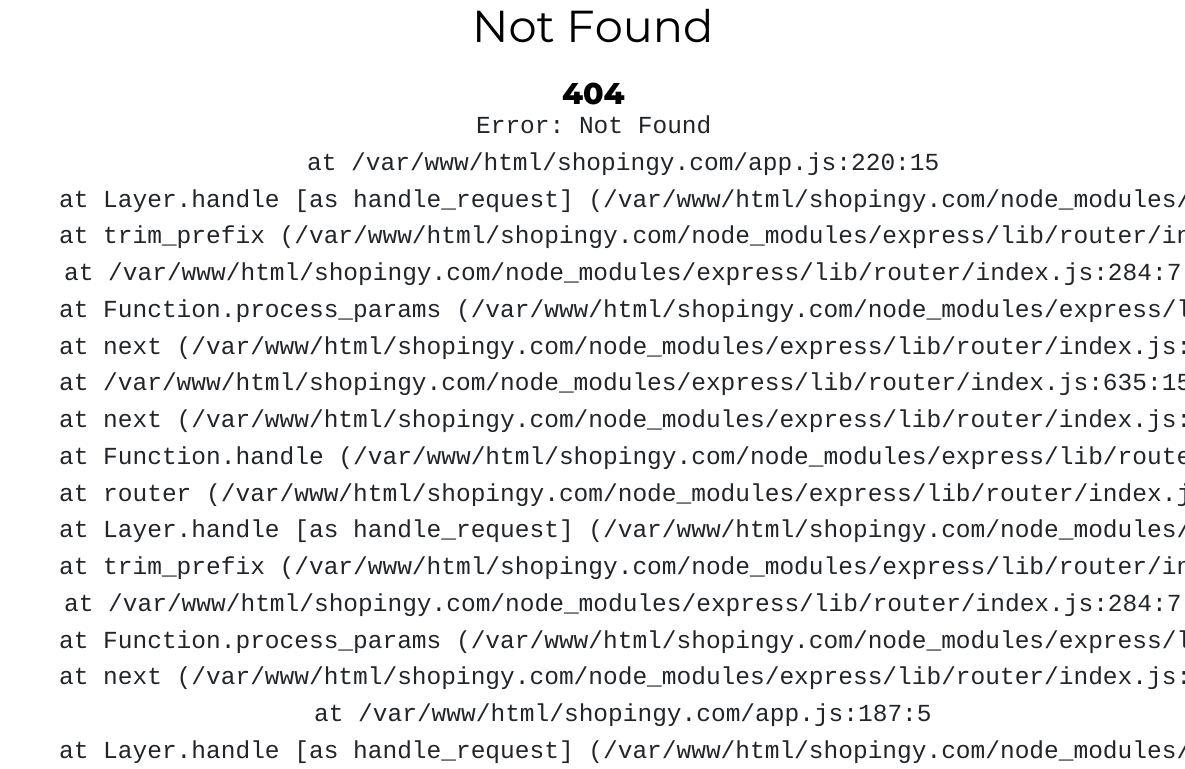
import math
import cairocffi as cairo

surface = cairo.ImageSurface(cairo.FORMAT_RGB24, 1185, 769)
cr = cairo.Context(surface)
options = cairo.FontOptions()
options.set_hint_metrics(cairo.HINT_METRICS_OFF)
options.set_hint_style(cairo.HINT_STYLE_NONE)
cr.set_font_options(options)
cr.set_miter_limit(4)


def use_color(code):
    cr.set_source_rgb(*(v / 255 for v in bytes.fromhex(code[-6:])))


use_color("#ffffff")
cr.paint()
cr.select_font_face("Montserrat")
cr.set_font_size(44.75)
use_color("#000000")
cr.move_to(472, 42)
cr.show_text("Not Found")
cr.select_font_face("Montserrat ExtraBold")
cr.set_font_size(30)
cr.move_to(562, 104)
cr.show_text("404")
cr.select_font_face("Liberation Mono")
cr.set_font_size(24.5)
use_color("#212529")
cr.move_to(476, 133)
cr.show_text("Error: Not Found")
cr.move_to(307, 170)
cr.show_text("at /var/www/html/shopingy.com/app.js:220:15")
cr.move_to(59, 207)
cr.show_text("at Layer.handle [as handle_request] (/var/www/html/shopingy.com/node_modules/")
cr.move_to(59, 243)
cr.show_text("at trim_prefix (/var/www/html/shopingy.com/node_modules/express/lib/router/in")
cr.move_to(64, 280)
cr.show_text("at /var/www/html/shopingy.com/node_modules/express/lib/router/index.js:284:7")
cr.move_to(59, 317)
cr.show_text("at Function.process_params (/var/www/html/shopingy.com/node_modules/express/l")
cr.move_to(59, 354)
cr.show_text("at next (/var/www/html/shopingy.com/node_modules/express/lib/router/index.js:")
cr.move_to(59, 390)
cr.show_text("at /var/www/html/shopingy.com/node_modules/express/lib/router/index.js:635:15")
cr.move_to(59, 427)
cr.show_text("at next (/var/www/html/shopingy.com/node_modules/express/lib/router/index.js:")
cr.move_to(59, 464)
cr.show_text("at Function.handle (/var/www/html/shopingy.com/node_modules/express/lib/route")
cr.move_to(59, 501)
cr.show_text("at router (/var/www/html/shopingy.com/node_modules/express/lib/router/index.j")
cr.move_to(59, 537)
cr.show_text("at Layer.handle [as handle_request] (/var/www/html/shopingy.com/node_modules/")
cr.move_to(59, 574)
cr.show_text("at trim_prefix (/var/www/html/shopingy.com/node_modules/express/lib/router/in")
cr.move_to(64, 611)
cr.show_text("at /var/www/html/shopingy.com/node_modules/express/lib/router/index.js:284:7")
cr.move_to(59, 648)
cr.show_text("at Function.process_params (/var/www/html/shopingy.com/node_modules/express/l")
cr.move_to(59, 684)
cr.show_text("at next (/var/www/html/shopingy.com/node_modules/express/lib/router/index.js:")
cr.move_to(314, 721)
cr.show_text("at /var/www/html/shopingy.com/app.js:187:5")
cr.move_to(59, 758)
cr.show_text("at Layer.handle [as handle_request] (/var/www/html/shopingy.com/node_modules/")
surface.write_to_png("result.png")
